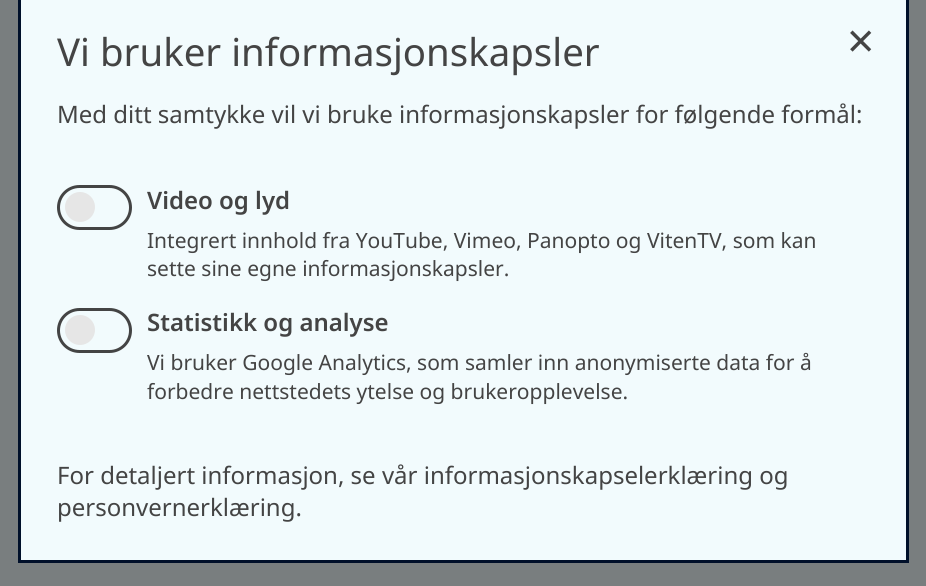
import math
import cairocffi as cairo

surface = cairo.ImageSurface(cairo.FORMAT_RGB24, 926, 586)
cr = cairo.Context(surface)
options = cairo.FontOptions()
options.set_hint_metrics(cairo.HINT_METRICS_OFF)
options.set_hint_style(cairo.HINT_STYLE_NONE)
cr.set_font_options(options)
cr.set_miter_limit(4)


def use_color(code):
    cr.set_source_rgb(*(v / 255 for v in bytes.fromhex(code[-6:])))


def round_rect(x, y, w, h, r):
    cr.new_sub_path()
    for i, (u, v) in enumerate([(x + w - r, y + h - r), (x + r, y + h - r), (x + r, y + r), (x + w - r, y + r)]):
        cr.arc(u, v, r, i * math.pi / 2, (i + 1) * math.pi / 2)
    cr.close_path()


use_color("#797e7f")
cr.paint()
use_color("#f2fbfd")
cr.rectangle(19.5, -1.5, 888, 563)
cr.fill_preserve()
use_color("#00102a")
cr.set_line_width(3)
cr.stroke()
cr.select_font_face("Noto Sans")
cr.set_font_size(48)
use_color("#444444")
cr.move_to(847, 58)
cr.show_text("×")
cr.set_font_size(38.4)
cr.move_to(57, 66)
cr.show_text("Vi bruker informasjonskapsler")
cr.set_font_size(24)
cr.move_to(57, 123)
cr.show_text("Med ditt samtykke vil vi bruke informasjonskapsler for følgende formål:")
round_rect(58.5, 186.5, 72, 42, 21)
cr.stroke()
use_color("#e6e6e6")
cr.arc(80, 207, 15, 0, 2 * math.pi)
cr.fill()
cr.select_font_face("Noto Sans SemiBold")
use_color("#444444")
cr.move_to(147, 209)
cr.show_text("Video og lyd")
cr.select_font_face("Noto Sans")
cr.set_font_size(21)
cr.move_to(147, 248)
cr.show_text("Integrert innhold fra YouTube, Vimeo, Panopto og VitenTV, som kan")
cr.move_to(147, 276)
cr.show_text("sette sine egne informasjonskapsler.")
round_rect(58.5, 309.5, 72, 42, 21)
cr.stroke()
use_color("#e6e6e6")
cr.arc(80, 330, 15, 0, 2 * math.pi)
cr.fill()
cr.select_font_face("Noto Sans SemiBold")
cr.set_font_size(24)
use_color("#444444")
cr.move_to(147, 331)
cr.show_text("Statistikk og analyse")
cr.select_font_face("Noto Sans")
cr.set_font_size(21)
cr.move_to(147, 370)
cr.show_text("Vi bruker Google Analytics, som samler inn anonymiserte data for å")
cr.move_to(147, 399)
cr.show_text("forbedre nettstedets ytelse og brukeropplevelse.")
cr.set_font_size(24)
cr.move_to(57, 484)
cr.show_text("For detaljert informasjon, se vår informasjonskapselerklæring og")
cr.move_to(57, 516)
cr.show_text("personvernerklæring.")
surface.write_to_png("result.png")
